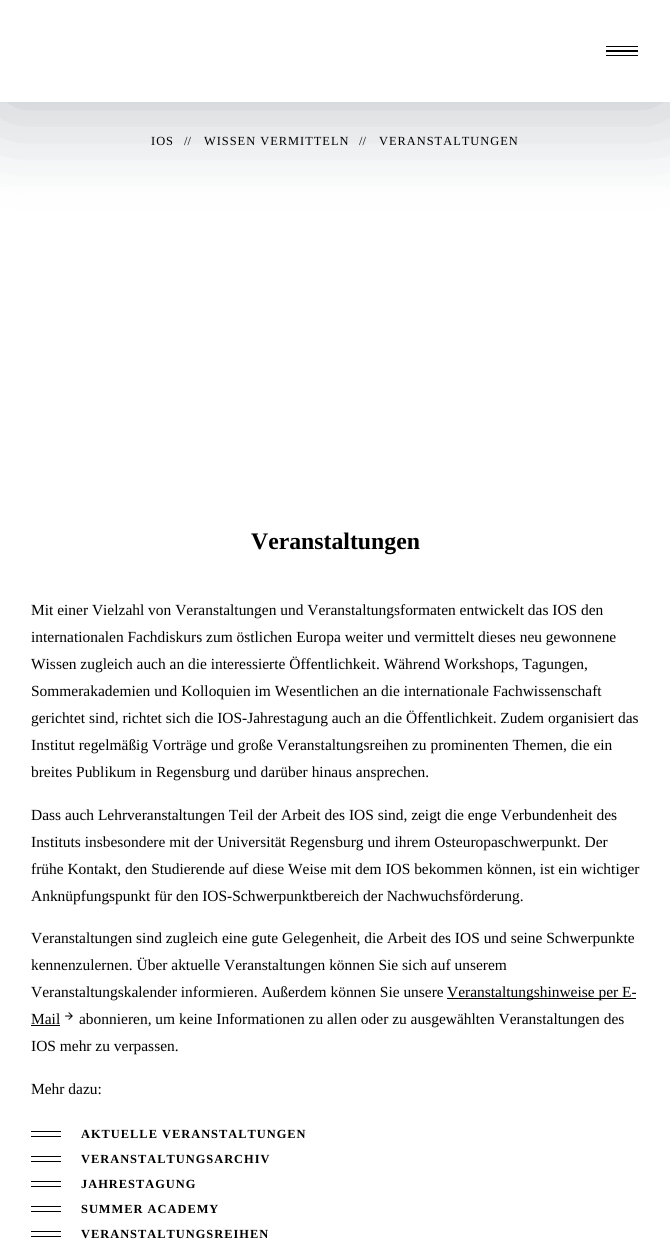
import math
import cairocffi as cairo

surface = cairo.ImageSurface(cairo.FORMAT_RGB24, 670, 1255)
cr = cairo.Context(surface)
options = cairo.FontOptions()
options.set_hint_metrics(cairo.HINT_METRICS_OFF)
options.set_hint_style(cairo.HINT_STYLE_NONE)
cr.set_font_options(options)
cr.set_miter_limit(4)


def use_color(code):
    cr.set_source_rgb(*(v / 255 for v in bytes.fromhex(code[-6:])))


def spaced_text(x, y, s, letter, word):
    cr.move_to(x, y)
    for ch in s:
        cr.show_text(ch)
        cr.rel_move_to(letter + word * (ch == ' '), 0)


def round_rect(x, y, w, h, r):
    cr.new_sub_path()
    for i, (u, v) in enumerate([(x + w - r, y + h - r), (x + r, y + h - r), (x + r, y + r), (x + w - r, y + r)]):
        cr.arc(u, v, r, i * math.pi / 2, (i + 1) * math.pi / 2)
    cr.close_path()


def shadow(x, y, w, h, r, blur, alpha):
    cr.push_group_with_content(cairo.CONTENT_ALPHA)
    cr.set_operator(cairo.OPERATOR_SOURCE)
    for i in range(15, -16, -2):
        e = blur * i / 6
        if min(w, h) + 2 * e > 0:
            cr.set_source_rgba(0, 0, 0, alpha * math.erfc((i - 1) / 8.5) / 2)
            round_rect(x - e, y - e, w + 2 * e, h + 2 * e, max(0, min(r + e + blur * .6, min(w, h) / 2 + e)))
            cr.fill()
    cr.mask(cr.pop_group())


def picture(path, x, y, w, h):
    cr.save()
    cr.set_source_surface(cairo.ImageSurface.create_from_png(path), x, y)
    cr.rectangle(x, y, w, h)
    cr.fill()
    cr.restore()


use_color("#ffffff")
cr.paint()
gradient = cairo.LinearGradient(335, 79, 335, 580)
gradient.add_color_stop_rgba(0, 0.929, 0.941, 0.953, 1)
gradient.add_color_stop_rgba(0.25, 1, 1, 1, 1)
cr.set_source(gradient)
cr.rectangle(0, 102, 670, 85)
cr.fill()
use_color("#000000")
shadow(0, 0, 670, 102, 0, 50, 0.2)
use_color("#ffffff")
cr.rectangle(0, 0, 670, 102)
cr.fill()
use_color("#000000")
cr.rectangle(606, 55, 32, 1)
cr.fill()
cr.rectangle(606, 46, 32, 1)
cr.fill()
cr.rectangle(606, 50, 32, 2)
cr.fill()
cr.select_font_face("Liberation Serif")
cr.set_font_size(12.4)
spaced_text(151, 145, "IOS", 1, 0)
cr.move_to(184, 145)
cr.show_text("//")
spaced_text(204, 145, "WISSEN VERMITTELN", 1, 0)
cr.move_to(359, 145)
cr.show_text("//")
spaced_text(379, 145, "VERANSTALTUNGEN", 1, 0)
cr.select_font_face("Liberation Serif", cairo.FONT_SLANT_NORMAL, cairo.FONT_WEIGHT_BOLD)
cr.set_font_size(23.75)
cr.move_to(251, 549)
cr.show_text("Veranstaltungen")
cr.select_font_face("Liberation Serif")
cr.set_font_size(15.45)
cr.move_to(31, 615)
cr.show_text("Mit einer Vielzahl von Veranstaltungen und Veranstaltungsformaten entwickelt das IOS den")
cr.move_to(31, 642)
cr.show_text("internationalen Fachdiskurs zum östlichen Europa weiter und vermittelt dieses neu gewonnene")
cr.move_to(31, 669)
cr.show_text("Wissen zugleich auch an die interessierte Öffentlichkeit. Während Workshops, Tagungen,")
cr.move_to(31, 696)
cr.show_text("Sommerakademien und Kolloquien im Wesentlichen an die internationale Fachwissenschaft")
cr.move_to(31, 723)
cr.show_text("gerichtet sind, richtet sich die IOS-Jahrestagung auch an die Öffentlichkeit. Zudem organisiert das")
cr.move_to(31, 750)
cr.show_text("Institut regelmäßig Vorträge und große Veranstaltungsreihen zu prominenten Themen, die ein")
cr.move_to(31, 777)
cr.show_text("breites Publikum in Regensburg und darüber hinaus ansprechen.")
cr.move_to(31, 820)
cr.show_text("Dass auch Lehrveranstaltungen Teil der Arbeit des IOS sind, zeigt die enge Verbundenheit des")
cr.move_to(31, 847)
cr.show_text("Instituts insbesondere mit der Universität Regensburg und ihrem Osteuropaschwerpunkt. Der")
cr.move_to(31, 874)
cr.show_text("frühe Kontakt, den Studierende auf diese Weise mit dem IOS bekommen können, ist ein wichtiger")
cr.move_to(31, 901)
cr.show_text("Anknüpfungspunkt für den IOS-Schwerpunktbereich der Nachwuchsförderung.")
cr.move_to(31, 943)
cr.show_text("Veranstaltungen sind zugleich eine gute Gelegenheit, die Arbeit des IOS und seine Schwerpunkte")
cr.move_to(31, 970)
cr.show_text("kennenzulernen. Über aktuelle Veranstaltungen können Sie sich auf unserem")
cr.move_to(31, 997)
cr.show_text("Veranstaltungskalender informieren. Außerdem können Sie unsere")
cr.rectangle(447, 998, 189, 1)
cr.fill()
cr.move_to(447, 997)
cr.show_text("Veranstaltungshinweise per E-")
cr.move_to(31, 1024)
cr.show_text("Mail")
cr.rectangle(31, 1025, 29, 1)
cr.fill()
picture("img1.png", 65, 1012, 8, 8)
cr.move_to(79, 1024)
cr.show_text("abonnieren, um keine Informationen zu allen oder zu ausgewählten Veranstaltungen des")
cr.move_to(31, 1051)
cr.show_text("IOS mehr zu verpassen.")
cr.move_to(31, 1094)
cr.show_text("Mehr dazu:")
cr.rectangle(31, 1131, 30, 1)
cr.fill()
cr.rectangle(31, 1136, 30, 1)
cr.fill()
cr.select_font_face("Liberation Serif", cairo.FONT_SLANT_NORMAL, cairo.FONT_WEIGHT_BOLD)
cr.set_font_size(12.4)
spaced_text(81, 1138, "AKTUELLE VERANSTALTUNGEN", 1, 0)
cr.rectangle(31, 1156, 30, 1)
cr.fill()
cr.rectangle(31, 1161, 30, 1)
cr.fill()
spaced_text(81, 1163, "VERANSTALTUNGSARCHIV", 1, 0)
cr.rectangle(31, 1181, 30, 1)
cr.fill()
cr.rectangle(31, 1186, 30, 1)
cr.fill()
spaced_text(81, 1188, "JAHRESTAGUNG", 1, 0)
cr.rectangle(31, 1206, 30, 1)
cr.fill()
cr.rectangle(31, 1211, 30, 1)
cr.fill()
spaced_text(81, 1213, "SUMMER ACADEMY", 1, 0)
cr.rectangle(31, 1231, 30, 1)
cr.fill()
cr.rectangle(31, 1236, 30, 1)
cr.fill()
spaced_text(81, 1238, "VERANSTALTUNGSREIHEN", 1, 0)
surface.write_to_png("result.png")
